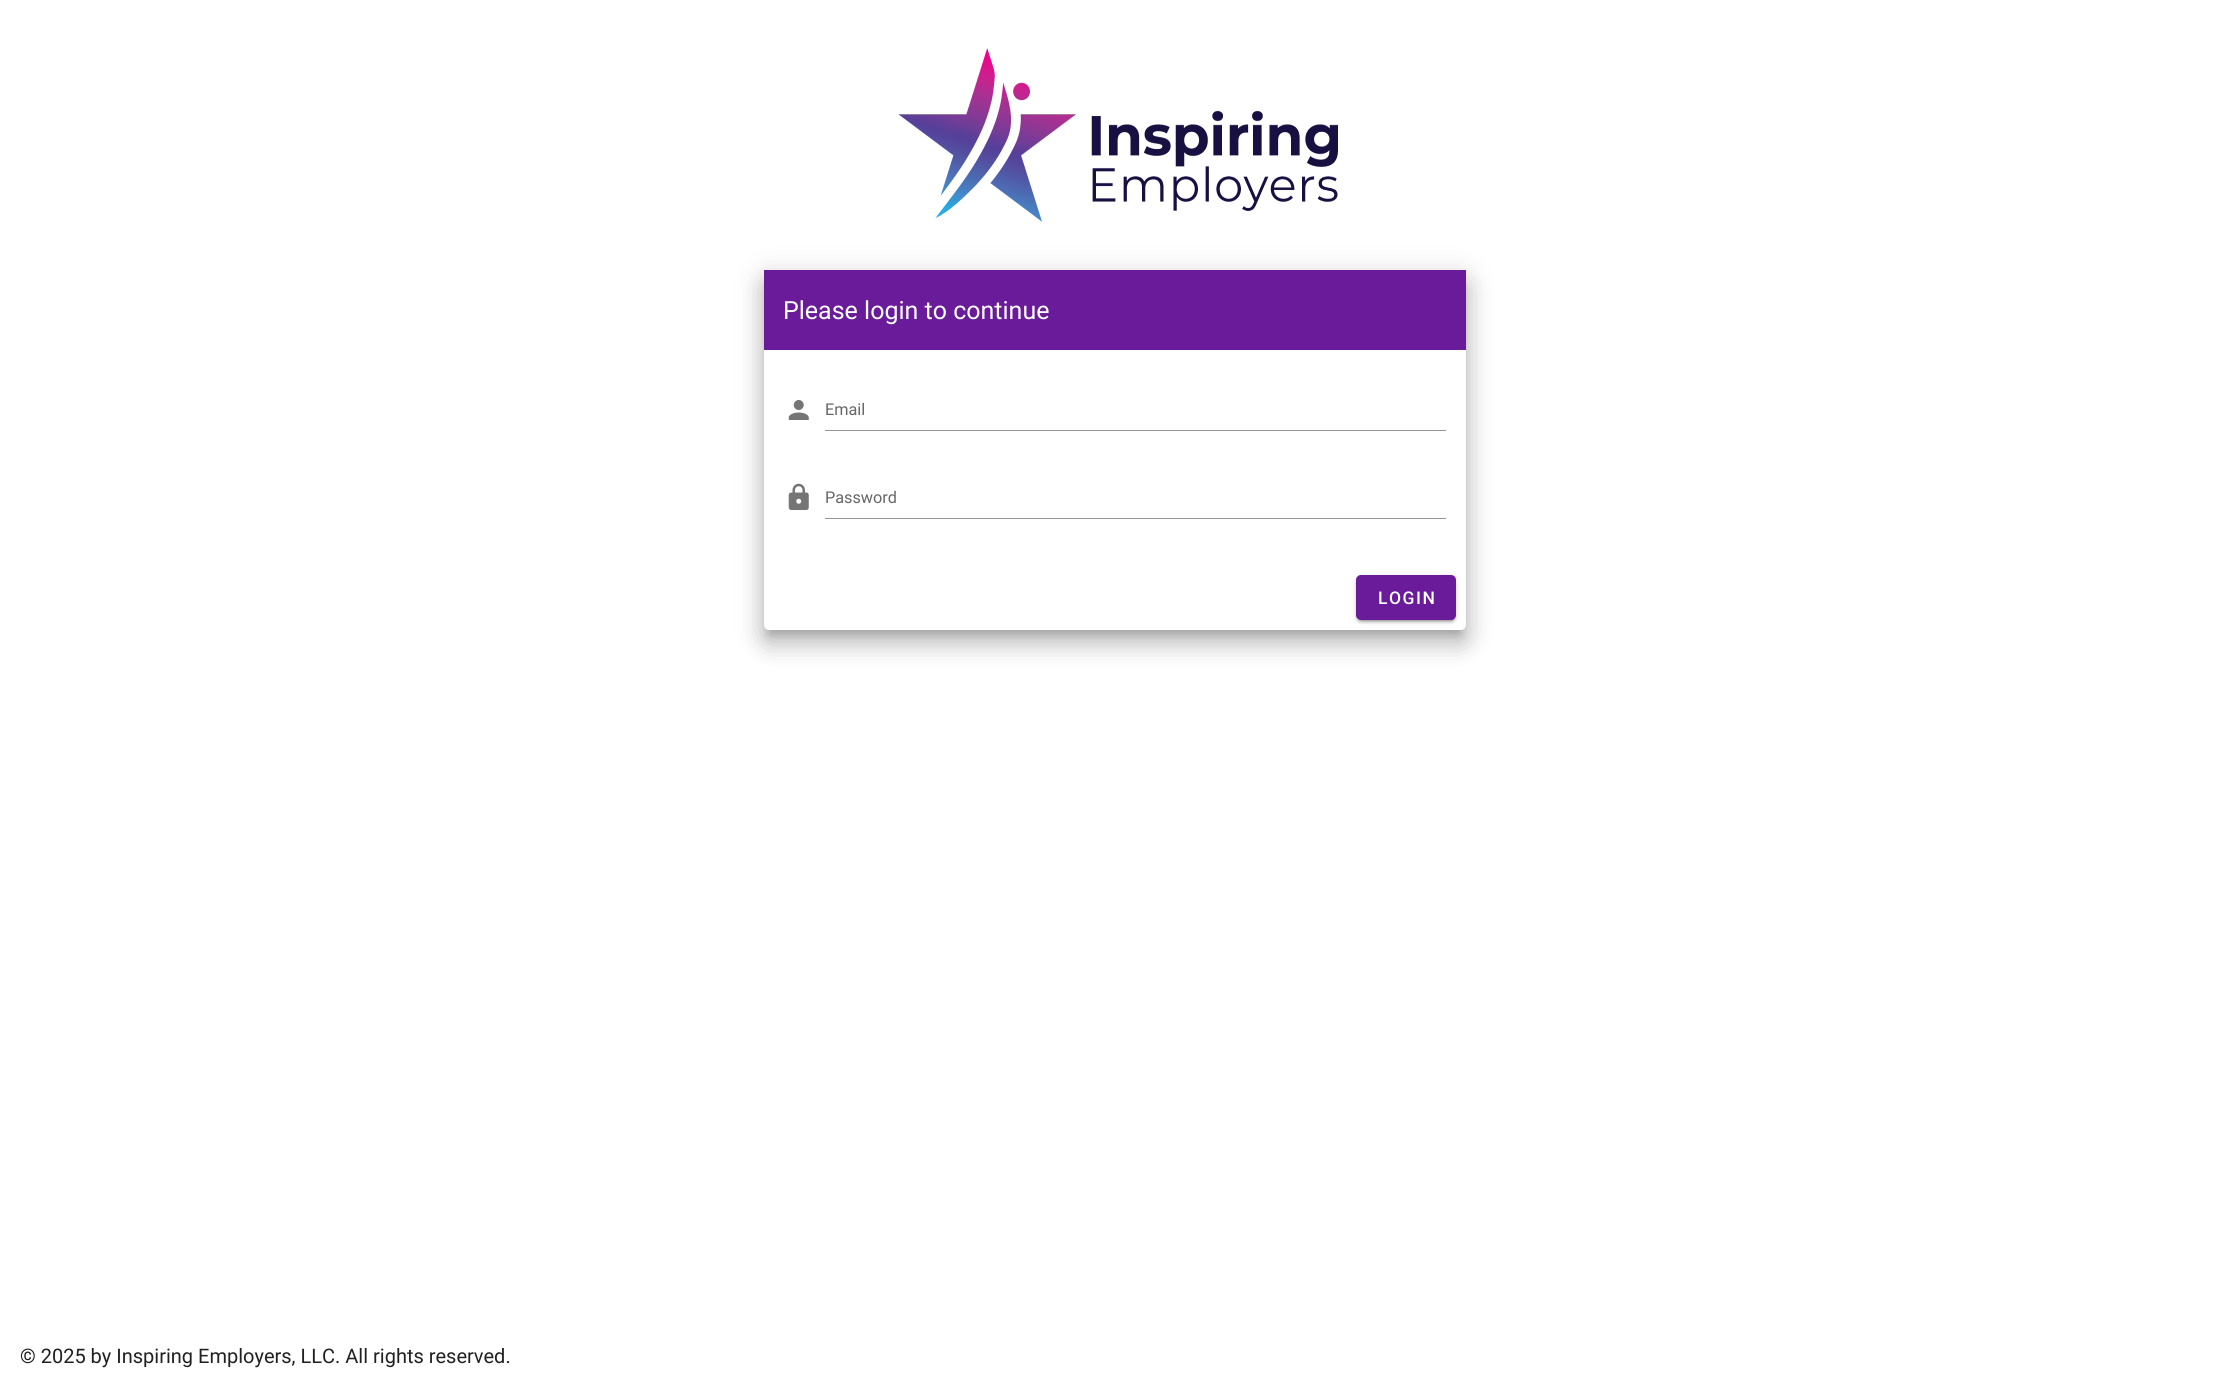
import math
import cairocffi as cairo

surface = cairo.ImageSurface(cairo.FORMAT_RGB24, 2230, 1378)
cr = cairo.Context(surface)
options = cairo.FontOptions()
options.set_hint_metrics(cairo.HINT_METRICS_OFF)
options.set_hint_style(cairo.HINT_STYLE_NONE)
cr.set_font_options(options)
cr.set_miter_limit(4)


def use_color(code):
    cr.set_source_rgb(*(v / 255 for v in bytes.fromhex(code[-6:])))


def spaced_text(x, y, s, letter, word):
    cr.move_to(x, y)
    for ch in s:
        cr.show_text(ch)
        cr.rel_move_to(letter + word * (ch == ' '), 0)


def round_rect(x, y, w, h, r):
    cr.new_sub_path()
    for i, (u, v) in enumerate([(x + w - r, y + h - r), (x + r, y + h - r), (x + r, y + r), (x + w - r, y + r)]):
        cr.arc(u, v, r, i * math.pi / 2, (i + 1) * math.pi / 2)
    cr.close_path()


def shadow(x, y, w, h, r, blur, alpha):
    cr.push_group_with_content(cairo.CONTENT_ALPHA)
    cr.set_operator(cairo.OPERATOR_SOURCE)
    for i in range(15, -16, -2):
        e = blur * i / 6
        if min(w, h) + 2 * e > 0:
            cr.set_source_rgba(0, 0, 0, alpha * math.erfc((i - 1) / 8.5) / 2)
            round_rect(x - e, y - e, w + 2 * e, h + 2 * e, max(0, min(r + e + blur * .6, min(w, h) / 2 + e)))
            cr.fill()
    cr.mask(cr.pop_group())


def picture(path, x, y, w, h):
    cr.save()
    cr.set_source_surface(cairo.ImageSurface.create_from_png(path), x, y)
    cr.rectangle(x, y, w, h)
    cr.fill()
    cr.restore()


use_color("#ffffff")
cr.paint()
picture("img1.png", 898, 48, 440, 174)
use_color("#000000")
shadow(759, 271, 712, 370, 10, 14, 0.12)
shadow(761, 283, 708, 365, 8, 10.5, 0.14)
shadow(769, 284, 692, 350, 0, 5, 0.2)
use_color("#ffffff")
round_rect(764, 270, 702, 360, 5)
cr.fill()
use_color("#6a1b9a")
cr.rectangle(764, 270, 702, 80)
cr.fill()
cr.select_font_face("Roboto")
cr.set_font_size(25)
use_color("#ffffff")
cr.move_to(783, 319)
cr.show_text("Please login to continue")
picture("img2.png", 788, 400, 21, 20)
cr.set_font_size(16.25)
use_color("#666666")
cr.move_to(825, 415)
cr.show_text("Email")
use_color("#949494")
cr.rectangle(825, 430, 621, 1)
cr.fill()
picture("img3.png", 788, 483, 21, 27)
use_color("#666666")
cr.move_to(825, 503)
cr.show_text("Password")
use_color("#949494")
cr.rectangle(825, 518, 621, 1)
cr.fill()
use_color("#000000")
shadow(1356, 576, 100, 45, 5, 3, 0.12)
shadow(1356, 578, 100, 45, 5, 1, 0.14)
shadow(1359, 581, 95, 40, 2.5, 0.5, 0.2)
use_color("#6a1b9a")
round_rect(1356, 575, 100, 45, 5)
cr.fill()
cr.select_font_face("Roboto Medium")
cr.set_font_size(17.5)
use_color("#ffffff")
spaced_text(1378, 604, "LOGIN", 1.5, 0)
cr.select_font_face("Roboto")
cr.set_font_size(20)
use_color("#212121")
cr.move_to(20, 1363)
cr.show_text("© 2025 by Inspiring Employers, LLC. All rights reserved.")
surface.write_to_png("result.png")
